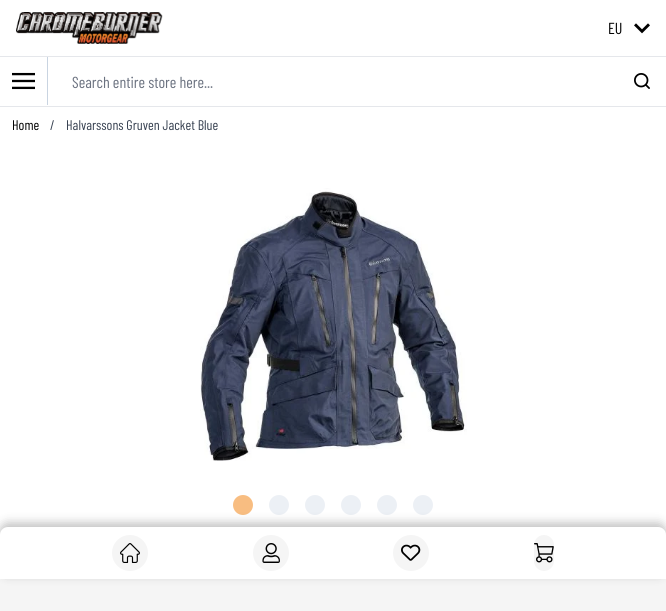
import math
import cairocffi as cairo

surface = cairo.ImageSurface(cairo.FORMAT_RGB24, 666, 611)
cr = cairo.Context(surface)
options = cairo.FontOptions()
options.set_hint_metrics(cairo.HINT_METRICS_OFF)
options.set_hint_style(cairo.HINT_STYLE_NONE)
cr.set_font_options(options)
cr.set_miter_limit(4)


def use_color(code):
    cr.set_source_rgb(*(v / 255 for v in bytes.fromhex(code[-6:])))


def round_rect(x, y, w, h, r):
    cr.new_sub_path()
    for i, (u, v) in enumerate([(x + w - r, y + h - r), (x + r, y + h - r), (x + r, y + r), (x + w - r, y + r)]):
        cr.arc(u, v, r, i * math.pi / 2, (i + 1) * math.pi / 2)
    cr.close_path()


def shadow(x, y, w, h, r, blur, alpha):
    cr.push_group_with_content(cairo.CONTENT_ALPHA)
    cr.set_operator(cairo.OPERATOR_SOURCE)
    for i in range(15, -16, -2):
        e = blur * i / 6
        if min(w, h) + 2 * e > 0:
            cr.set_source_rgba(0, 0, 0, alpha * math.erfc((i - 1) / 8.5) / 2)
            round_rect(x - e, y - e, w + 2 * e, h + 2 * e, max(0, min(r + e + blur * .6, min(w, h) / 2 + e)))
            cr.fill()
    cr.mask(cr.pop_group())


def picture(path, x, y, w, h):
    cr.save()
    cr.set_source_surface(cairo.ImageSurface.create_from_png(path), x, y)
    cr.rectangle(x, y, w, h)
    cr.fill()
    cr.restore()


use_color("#ffffff")
cr.paint()
use_color("#e5e7eb")
cr.rectangle(0, 106, 666, 1)
cr.fill()
picture("img1.png", 16, 12, 147, 32)
cr.select_font_face("Barlow Condensed")
cr.set_font_size(16)
use_color("#000000")
cr.move_to(608, 34)
cr.show_text("EU")
picture("img2.png", 634, 23, 16, 11)
use_color("#e5e7eb")
cr.rectangle(0, 56, 666, 1)
cr.fill()
use_color("#c9d4e1")
cr.rectangle(47, 57, 1, 48)
cr.fill()
picture("img3.png", 12, 72, 23, 18)
use_color("#6b7280")
cr.move_to(72, 88)
cr.show_text("Search entire store here...")
picture("img4.png", 634, 73, 16, 16)
use_color("#f5f5f5")
cr.rectangle(0, 579, 666, 32)
cr.fill()
use_color("#f8bd81")
cr.arc(243, 505, 10, 0, 2 * math.pi)
cr.fill()
use_color("#ecf0f5")
cr.arc(279, 505, 10, 0, 2 * math.pi)
cr.fill()
cr.arc(315, 505, 10, 0, 2 * math.pi)
cr.fill()
cr.arc(351, 505, 10, 0, 2 * math.pi)
cr.fill()
cr.arc(387, 505, 10, 0, 2 * math.pi)
cr.fill()
cr.arc(423, 505, 10, 0, 2 * math.pi)
cr.fill()
use_color("#000000")
shadow(0, 523, 666, 52, 8, 5, 0.25)
use_color("#ffffff")
cr.new_path()
cr.move_to(8, 527)
cr.line_to(658, 527)
cr.curve_to(662.5, 527, 666, 530.5, 666, 535)
cr.line_to(666, 579)
cr.line_to(0, 579)
cr.line_to(0, 535)
cr.curve_to(0, 530.5, 3.5, 527, 8, 527)
cr.close_path()
cr.fill()
use_color("#f5f5f5")
cr.arc(130, 553, 18, 0, 2 * math.pi)
cr.fill()
picture("img5.png", 120, 543, 20, 20)
cr.arc(271, 553, 18, 0, 2 * math.pi)
cr.fill()
picture("img6.png", 262, 543, 18, 20)
cr.arc(411, 553, 18, 0, 2 * math.pi)
cr.fill()
picture("img7.png", 401, 544, 20, 17)
round_rect(534, 535, 20, 36, 10)
cr.fill()
picture("img8.png", 534, 543, 20, 20)
cr.set_font_size(14)
use_color("#000000")
cr.move_to(12, 130)
cr.show_text("Home")
use_color("#374151")
cr.move_to(50, 130)
cr.show_text("/")
cr.move_to(66, 130)
cr.show_text("Halvarssons Gruven Jacket Blue")
picture("img9.png", 200, 188, 267, 273)
surface.write_to_png("result.png")
